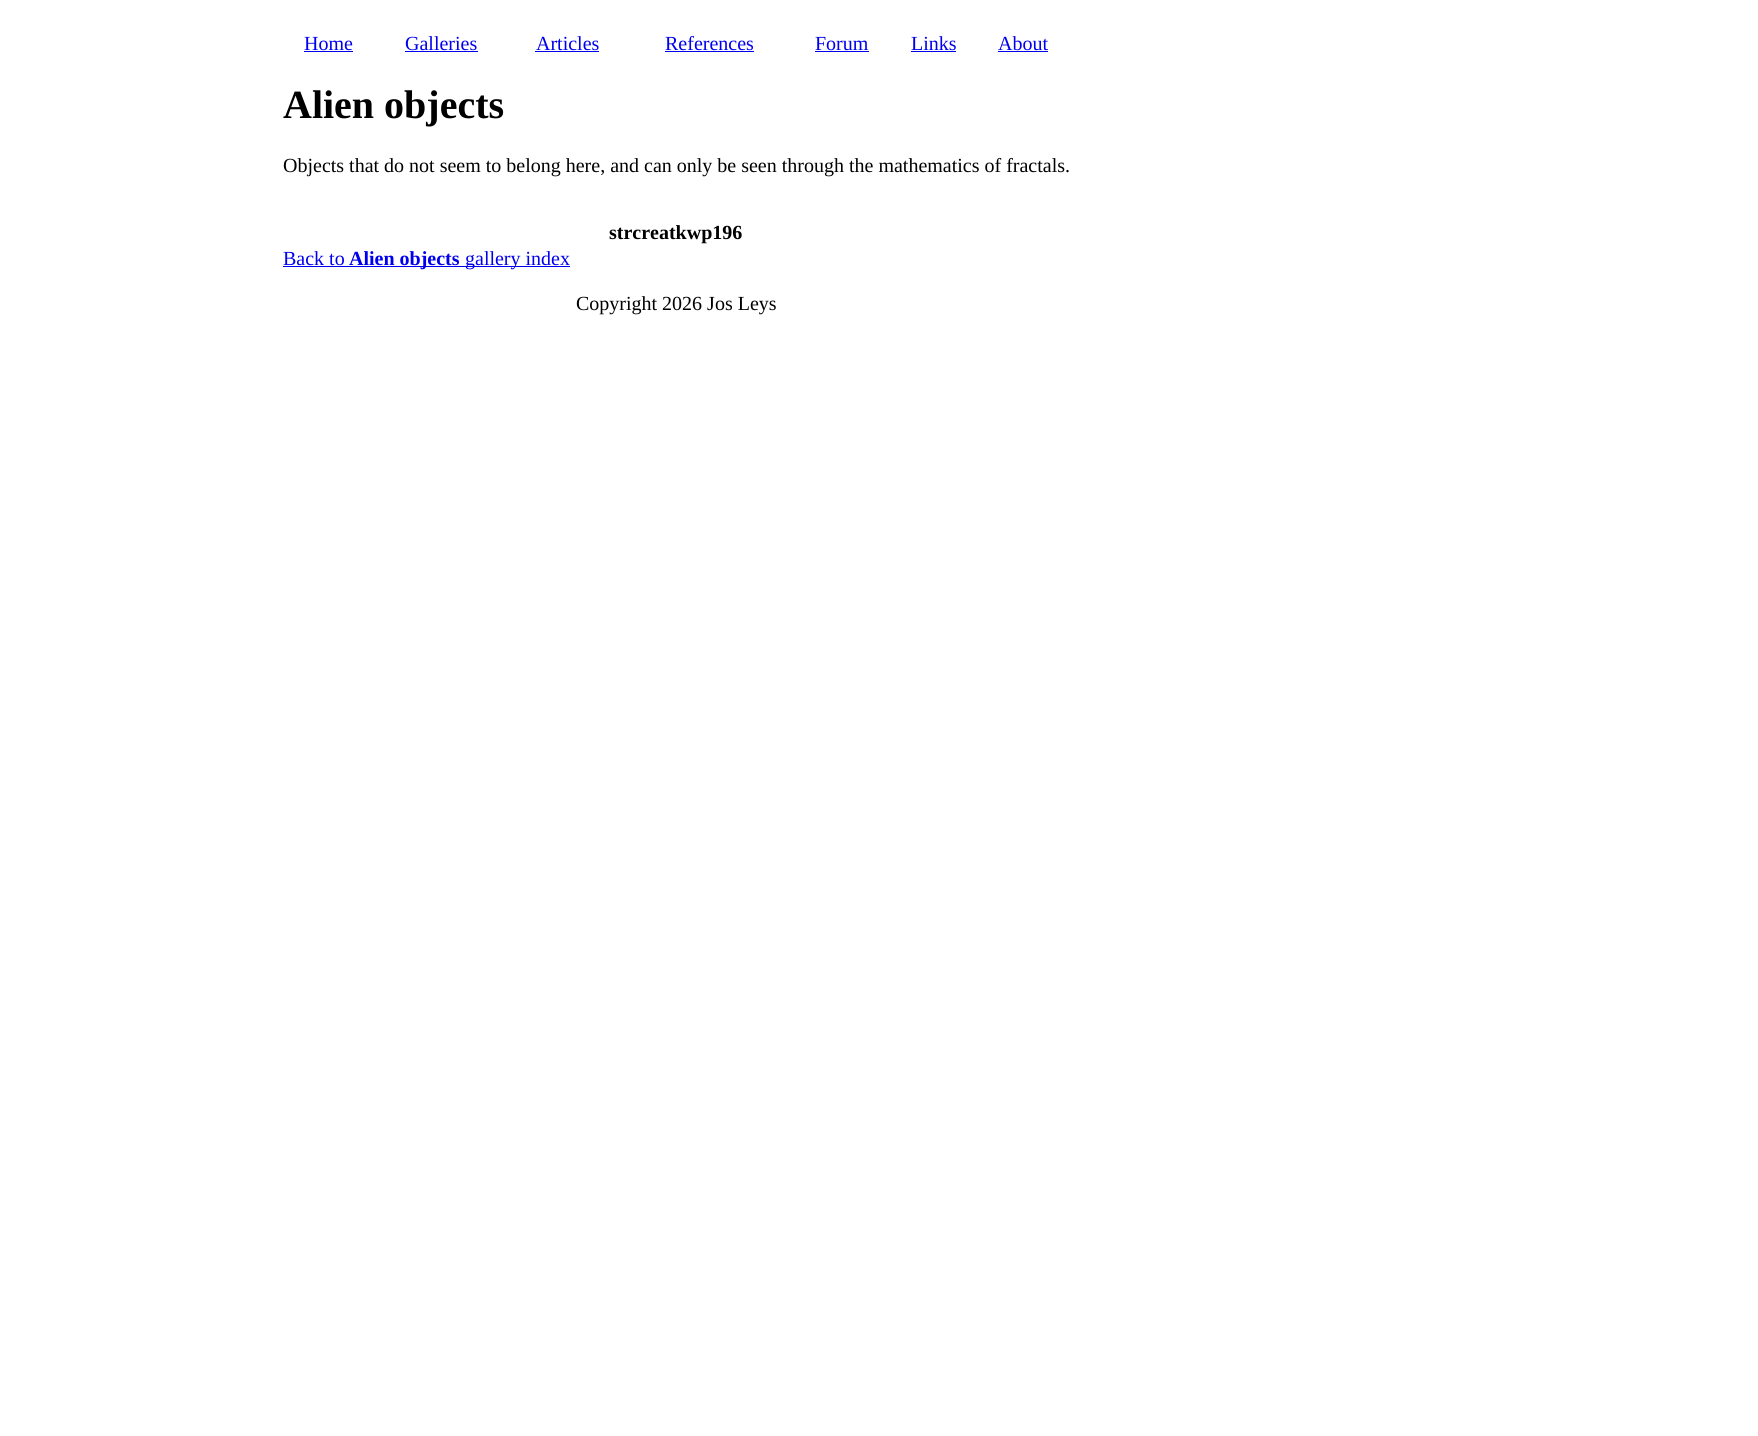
import math
import cairocffi as cairo

surface = cairo.ImageSurface(cairo.FORMAT_RGB24, 1758, 1436)
cr = cairo.Context(surface)
options = cairo.FontOptions()
options.set_hint_metrics(cairo.HINT_METRICS_OFF)
options.set_hint_style(cairo.HINT_STYLE_NONE)
cr.set_font_options(options)
cr.set_miter_limit(4)


def use_color(code):
    cr.set_source_rgb(*(v / 255 for v in bytes.fromhex(code[-6:])))


use_color("#ffffff")
cr.paint()
cr.select_font_face("Liberation Serif")
cr.set_font_size(20)
use_color("#0000ee")
cr.move_to(304, 50)
cr.show_text("Home")
cr.rectangle(304, 51, 49, 1)
cr.fill()
cr.move_to(405, 50)
cr.show_text("Galleries")
cr.rectangle(405, 51, 73, 1)
cr.fill()
cr.move_to(536, 50)
cr.show_text("Articles")
cr.rectangle(535, 51, 64, 1)
cr.fill()
cr.move_to(665, 50)
cr.show_text("References")
cr.rectangle(665, 51, 89, 1)
cr.fill()
cr.move_to(815, 50)
cr.show_text("Forum")
cr.rectangle(815, 51, 54, 1)
cr.fill()
cr.move_to(911, 50)
cr.show_text("Links")
cr.rectangle(911, 51, 45, 1)
cr.fill()
cr.move_to(998, 50)
cr.show_text("About")
cr.rectangle(998, 51, 50, 1)
cr.fill()
cr.select_font_face("Liberation Serif", cairo.FONT_SLANT_NORMAL, cairo.FONT_WEIGHT_BOLD)
cr.set_font_size(40)
use_color("#000000")
cr.move_to(283, 118)
cr.show_text("Alien objects")
cr.select_font_face("Liberation Serif")
cr.set_font_size(20)
cr.move_to(283, 172)
cr.show_text("Objects that do not seem to belong here, and can only be seen through the mathematics of fractals.")
cr.select_font_face("Liberation Serif", cairo.FONT_SLANT_NORMAL, cairo.FONT_WEIGHT_BOLD)
cr.move_to(609, 239)
cr.show_text("strcreatkwp196")
cr.select_font_face("Liberation Serif")
use_color("#0000ee")
cr.move_to(283, 265)
cr.show_text("Back to")
cr.rectangle(283, 266, 287, 1)
cr.fill()
cr.select_font_face("Liberation Serif", cairo.FONT_SLANT_NORMAL, cairo.FONT_WEIGHT_BOLD)
cr.move_to(349, 265)
cr.show_text("Alien objects")
cr.select_font_face("Liberation Serif")
cr.move_to(465, 265)
cr.show_text("gallery index")
use_color("#000000")
cr.move_to(576, 310)
cr.show_text("Copyright 2026 Jos Leys")
surface.write_to_png("result.png")
